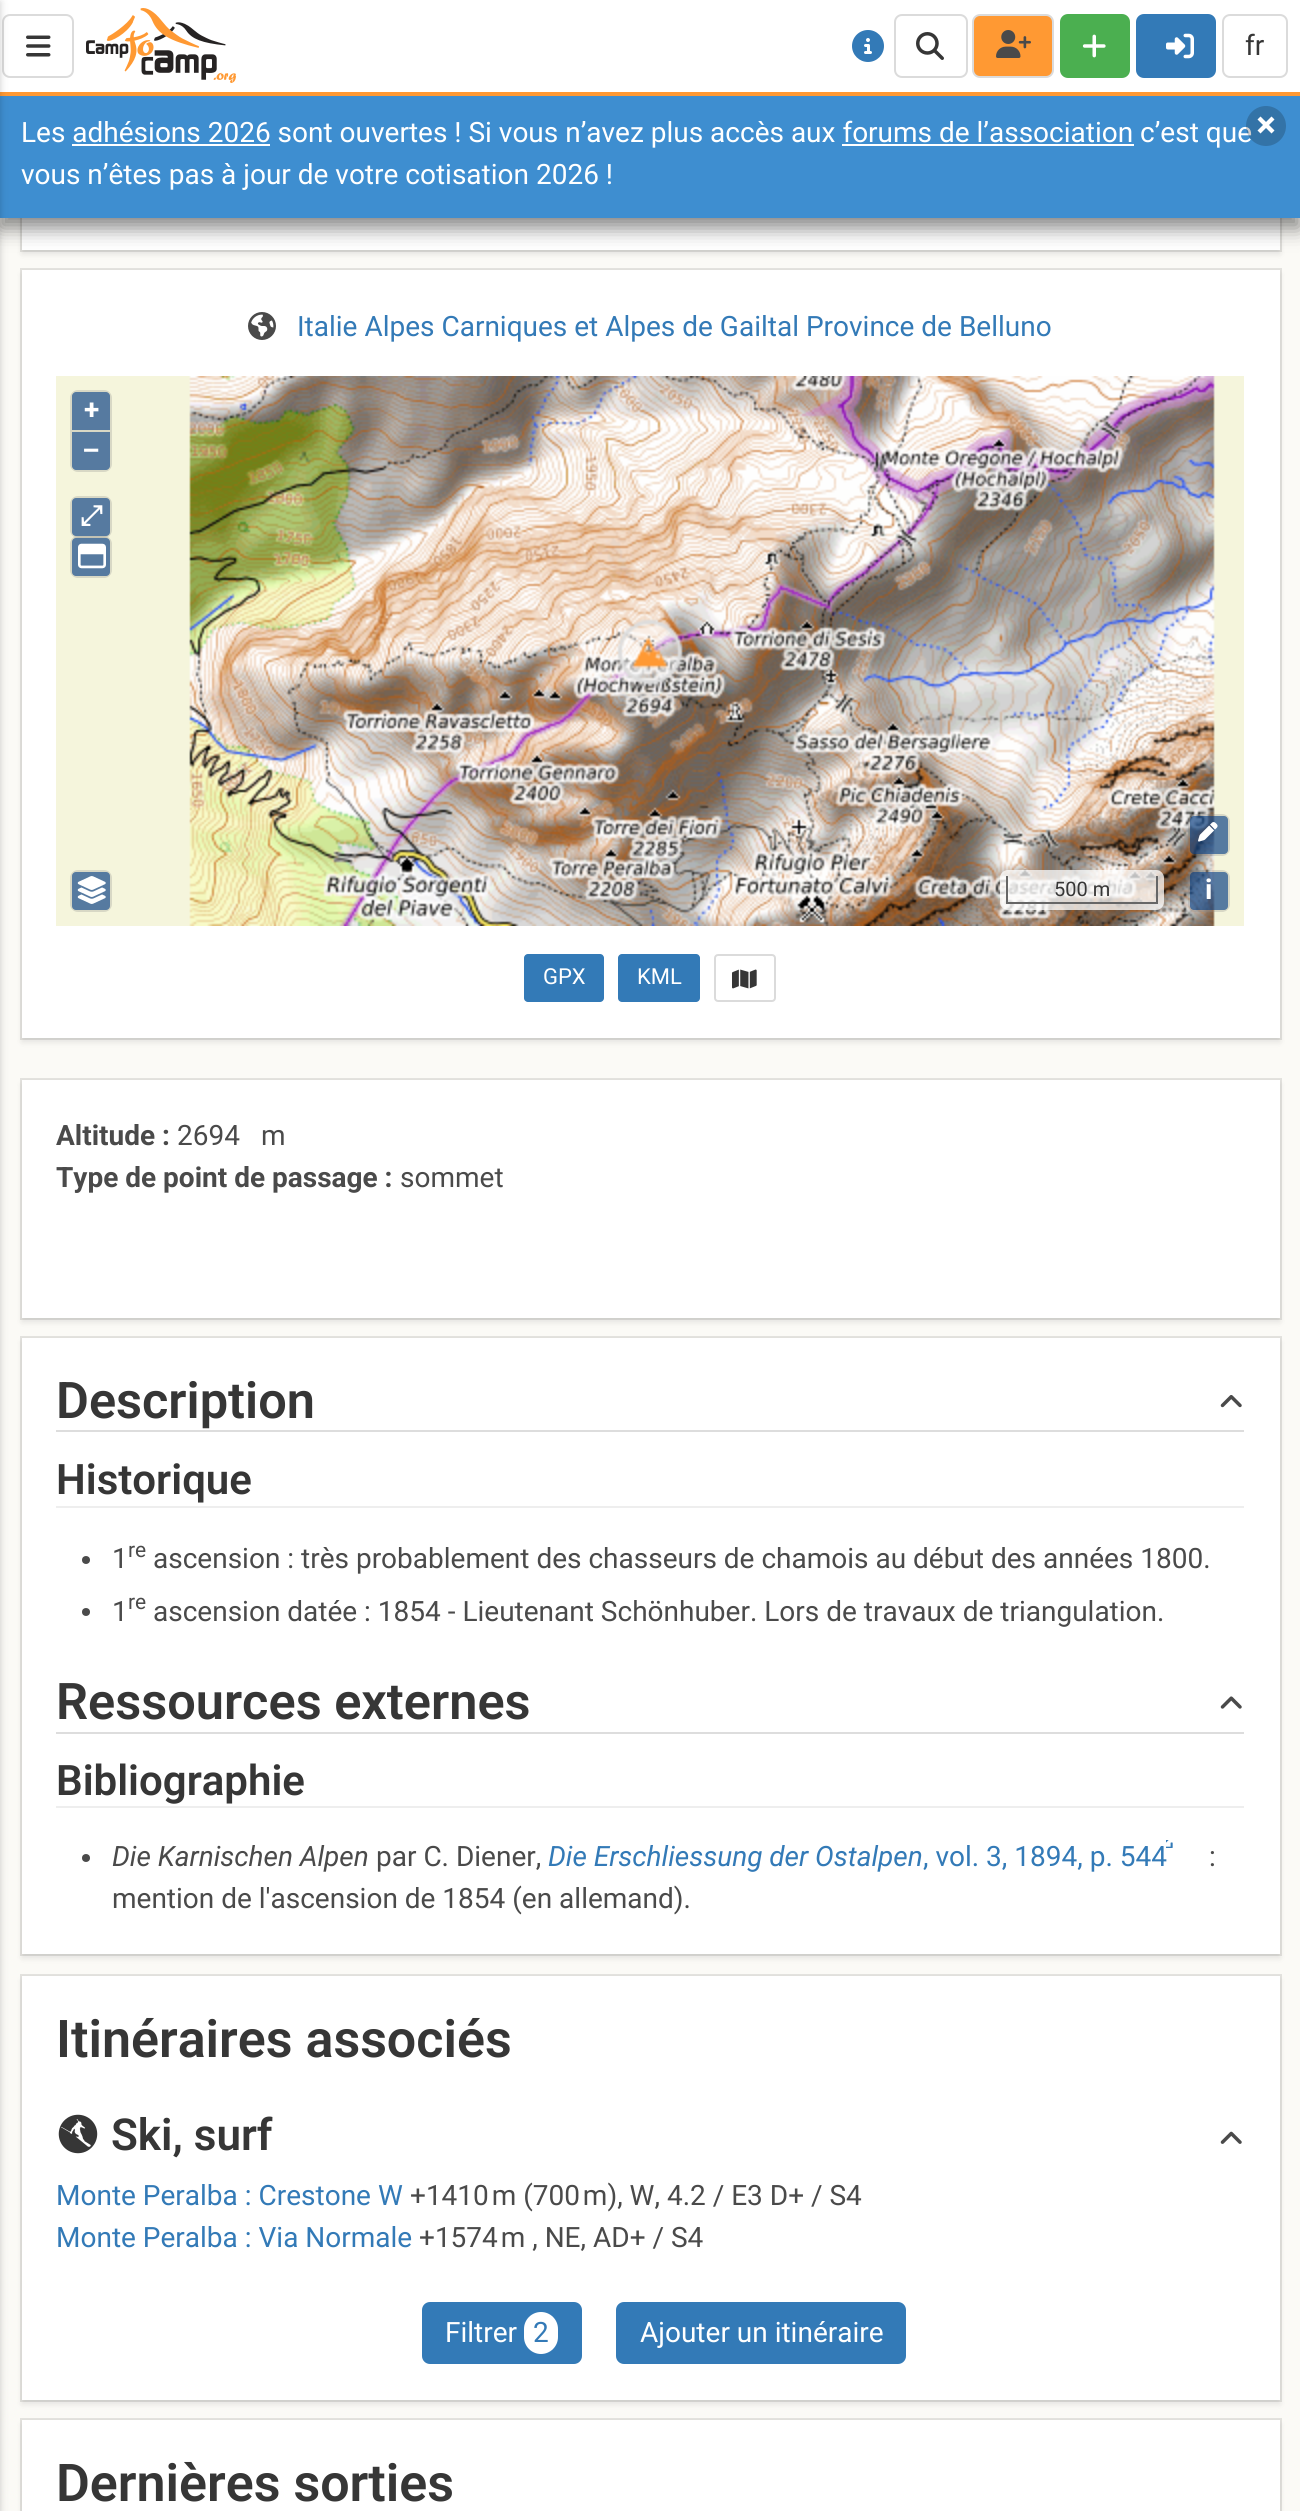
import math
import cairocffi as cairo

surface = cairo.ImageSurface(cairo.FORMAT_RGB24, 1300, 2511)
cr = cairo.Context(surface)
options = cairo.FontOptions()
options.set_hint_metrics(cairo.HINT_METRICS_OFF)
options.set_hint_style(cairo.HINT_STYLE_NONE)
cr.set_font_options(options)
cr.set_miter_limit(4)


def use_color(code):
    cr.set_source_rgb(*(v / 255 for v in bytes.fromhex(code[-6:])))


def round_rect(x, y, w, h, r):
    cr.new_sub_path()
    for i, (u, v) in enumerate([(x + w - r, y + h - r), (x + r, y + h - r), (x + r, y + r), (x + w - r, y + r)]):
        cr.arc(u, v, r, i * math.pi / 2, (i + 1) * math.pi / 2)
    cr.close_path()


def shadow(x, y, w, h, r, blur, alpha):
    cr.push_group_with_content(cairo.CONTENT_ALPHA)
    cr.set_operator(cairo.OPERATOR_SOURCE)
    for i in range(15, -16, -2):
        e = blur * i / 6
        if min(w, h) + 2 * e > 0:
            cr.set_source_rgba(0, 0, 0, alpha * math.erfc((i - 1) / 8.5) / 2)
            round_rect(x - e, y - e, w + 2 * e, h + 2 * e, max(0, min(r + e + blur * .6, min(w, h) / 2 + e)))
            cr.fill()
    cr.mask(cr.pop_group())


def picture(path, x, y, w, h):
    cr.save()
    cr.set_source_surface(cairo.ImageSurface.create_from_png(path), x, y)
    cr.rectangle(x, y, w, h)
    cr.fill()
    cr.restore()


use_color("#fbfaf6")
cr.paint()
cr.rectangle(21, 111, 1260, 140)
use_color("#e3e2de")
cr.stroke()
use_color("#0a0a0a")
shadow(22, 116, 1258, 138, 0, 3, 0.1)
use_color("#ffffff")
cr.rectangle(22, 218, 1258, 32)
cr.fill()
use_color("#0a0a0a")
shadow(0, 102, 1300, 126, 0, 10, 0.5)
use_color("#ff9933")
cr.rectangle(0, 92, 1300, 4)
cr.fill()
use_color("#ffffff")
cr.rectangle(0, 0, 1300, 92)
cr.fill()
round_rect(3, 15, 70, 62, 7)
use_color("#dbdbdb")
cr.stroke()
use_color("#3e8ed0")
cr.rectangle(0, 96, 1300, 122)
cr.fill()
use_color("#000000")
shadow(-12, 2, 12, 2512, 0, 4, 0.2)
picture("img1.png", 26, 35, 25, 22)
picture("img2.png", 86, 8, 150, 75)
picture("img3.png", 852, 30, 32, 32)
round_rect(895, 15, 72, 62, 7)
use_color("#dbdbdb")
cr.stroke()
picture("img4.png", 916, 32, 28, 28)
use_color("#ff9933")
round_rect(973, 15, 80, 62, 7)
cr.fill_preserve()
use_color("#dbdbdb")
cr.stroke()
picture("img5.png", 996, 30, 35, 28)
use_color("#4baf50")
round_rect(1060, 14, 70, 64, 8)
cr.fill()
picture("img6.png", 1082, 34, 24, 24)
use_color("#337ab7")
round_rect(1136, 14, 80, 64, 8)
cr.fill()
picture("img7.png", 1166, 33, 28, 26)
round_rect(1223, 15, 64, 62, 7)
use_color("#dbdbdb")
cr.stroke()
cr.select_font_face("Roboto")
cr.set_font_size(28)
use_color("#363636")
cr.move_to(1245, 55)
cr.show_text("fr")
use_color("#ffffff")
cr.move_to(21, 142)
cr.show_text("Les adhésions 2026 sont ouvertes ! Si vous n’avez plus accès aux forums de l’association c’est que")
cr.rectangle(72, 144, 198, 2)
cr.fill()
cr.rectangle(842, 144, 292, 2)
cr.fill()
cr.move_to(21, 184)
cr.show_text("vous n’êtes pas à jour de votre cotisation 2026 !")
cr.set_source_rgba(0.039, 0.039, 0.039, 0.2)
cr.new_path()
cr.arc(1266, 126, 20, 0, 2 * math.pi)
cr.fill()
use_color("#ffffff")
cr.new_path()
cr.move_to(1260.5, 116.5)
cr.line_to(1274.5, 130.5)
cr.line_to(1271.5, 133.5)
cr.line_to(1257.5, 119.5)
cr.close_path()
cr.fill()
cr.new_path()
cr.move_to(1271.5, 116.5)
cr.line_to(1274.5, 119.5)
cr.line_to(1260.5, 133.5)
cr.line_to(1257.5, 130.5)
cr.close_path()
cr.fill()
cr.rectangle(21, 269, 1260, 770)
use_color("#e3e2de")
cr.stroke()
use_color("#0a0a0a")
shadow(22, 274, 1258, 768, 0, 3, 0.1)
use_color("#ffffff")
cr.rectangle(22, 270, 1258, 768)
cr.fill()
picture("img8.png", 248, 312, 28, 28)
use_color("#337ab7")
cr.move_to(297, 336)
cr.show_text("Italie Alpes Carniques et Alpes de Gailtal Province de Belluno")
use_color("#f5f5dc")
cr.rectangle(56, 376, 1188, 550)
cr.fill()
picture("img9.png", 189, 376, 1026, 550)
use_color("#d8d8c5")
round_rect(70, 390, 42, 82, 8)
cr.fill()
use_color("#567aa0")
cr.new_path()
cr.move_to(76, 392)
cr.line_to(106, 392)
cr.curve_to(108, 392, 110, 394, 110, 396)
cr.line_to(110, 430)
cr.line_to(72, 430)
cr.line_to(72, 396)
cr.curve_to(72, 394, 74, 392, 76, 392)
cr.close_path()
cr.fill()
cr.select_font_face("Roboto", cairo.FONT_SLANT_NORMAL, cairo.FONT_WEIGHT_BOLD)
use_color("#ffffff")
cr.move_to(84, 419)
cr.show_text("+")
use_color("#567aa0")
cr.new_path()
cr.move_to(72, 432)
cr.line_to(110, 432)
cr.line_to(110, 466)
cr.curve_to(110, 468, 108, 470, 106, 470)
cr.line_to(76, 470)
cr.curve_to(74, 470, 72, 468, 72, 466)
cr.close_path()
cr.fill()
use_color("#ffffff")
cr.move_to(82, 460)
cr.show_text("–")
use_color("#d8d8c5")
round_rect(70, 496, 42, 42, 8)
cr.fill()
use_color("#567aa0")
round_rect(72, 498, 38, 38, 4)
cr.fill()
cr.select_font_face("FreeSerif", cairo.FONT_SLANT_NORMAL, cairo.FONT_WEIGHT_BOLD)
use_color("#ffffff")
cr.move_to(80, 525)
cr.show_text("⤢")
cr.set_source_rgba(0.502, 0.502, 0.502, 0.25)
round_rect(70, 536, 42, 42, 8)
cr.fill()
use_color("#567aa0")
round_rect(72, 538, 38, 38, 4)
cr.fill()
picture("img10.png", 78, 543, 28, 26)
cr.set_source_rgba(0.502, 0.502, 0.502, 0.25)
round_rect(1188, 814, 42, 42, 8)
cr.fill()
cr.set_source_rgba(0, 0.235, 0.533, 0.6)
round_rect(1190, 816, 38, 38, 4)
cr.fill()
picture("img11.png", 1198, 822, 20, 20)
use_color("#d8d8c5")
round_rect(70, 870, 42, 42, 8)
cr.fill()
use_color("#567aa0")
round_rect(72, 872, 38, 38, 4)
cr.fill()
picture("img12.png", 77, 876, 29, 28)
cr.set_source_rgba(1, 1, 1, 0.75)
round_rect(1000, 870, 164, 40, 8)
cr.fill()
use_color("#666666")
cr.rectangle(1156, 876, 2, 28)
cr.fill()
cr.rectangle(1006, 902, 152, 2)
cr.fill()
cr.rectangle(1006, 876, 2, 28)
cr.fill()
cr.select_font_face("Roboto")
cr.set_font_size(20)
use_color("#363636")
cr.move_to(1054, 896)
cr.show_text("500 m")
cr.set_source_rgba(0.502, 0.502, 0.502, 0.25)
round_rect(1188, 870, 42, 42, 8)
cr.fill()
cr.set_source_rgba(0, 0.235, 0.533, 0.6)
round_rect(1190, 872, 38, 38, 4)
cr.fill()
cr.select_font_face("Roboto", cairo.FONT_SLANT_NORMAL, cairo.FONT_WEIGHT_BOLD)
cr.set_font_size(28)
use_color("#ffffff")
cr.move_to(1205, 899)
cr.show_text("i")
use_color("#337ab7")
round_rect(524, 954, 80, 48, 4)
cr.fill()
cr.select_font_face("Roboto")
cr.set_font_size(22)
use_color("#ffffff")
cr.move_to(543, 984)
cr.show_text("GPX")
use_color("#337ab7")
round_rect(618, 954, 82, 48, 4)
cr.fill()
use_color("#ffffff")
cr.move_to(637, 984)
cr.show_text("KML")
round_rect(715, 955, 60, 46, 3)
use_color("#dbdbdb")
cr.stroke()
picture("img13.png", 732, 969, 25, 20)
cr.rectangle(21, 1079, 1260, 240)
use_color("#e3e2de")
cr.stroke()
use_color("#0a0a0a")
shadow(22, 1084, 1258, 238, 0, 3, 0.1)
use_color("#ffffff")
cr.rectangle(22, 1080, 1258, 238)
cr.fill()
cr.select_font_face("Roboto", cairo.FONT_SLANT_NORMAL, cairo.FONT_WEIGHT_BOLD)
cr.set_font_size(28)
use_color("#4a4a4a")
cr.move_to(56, 1145)
cr.show_text("Altitude :")
cr.select_font_face("Roboto")
cr.move_to(177, 1145)
cr.show_text("2694")
cr.move_to(261, 1145)
cr.show_text("m")
cr.select_font_face("Roboto", cairo.FONT_SLANT_NORMAL, cairo.FONT_WEIGHT_BOLD)
cr.move_to(56, 1187)
cr.show_text("Type de point de passage :")
cr.select_font_face("Roboto")
cr.move_to(400, 1187)
cr.show_text("sommet")
cr.rectangle(21, 1337, 1260, 618)
use_color("#e3e2de")
cr.stroke()
use_color("#0a0a0a")
shadow(22, 1342, 1258, 616, 0, 3, 0.1)
use_color("#ffffff")
cr.rectangle(22, 1338, 1258, 616)
cr.fill()
use_color("#dddddd")
cr.rectangle(56, 1430, 1188, 2)
cr.fill()
cr.select_font_face("Roboto SemiBold")
cr.set_font_size(50.5)
use_color("#363636")
cr.move_to(56, 1418)
cr.show_text("Description")
picture("img14.png", 1220, 1395, 22, 13)
use_color("#eeeeee")
cr.rectangle(56, 1506, 1188, 2)
cr.fill()
cr.set_font_size(42)
use_color("#363636")
cr.move_to(56, 1494)
cr.show_text("Historique")
use_color("#4a4a4a")
cr.new_path()
cr.arc(86, 1560, 4, 0, 2 * math.pi)
cr.fill()
cr.select_font_face("Roboto")
cr.set_font_size(28)
cr.move_to(112, 1568)
cr.show_text("1")
cr.set_font_size(21)
cr.move_to(128, 1557)
cr.show_text("re")
cr.set_font_size(28)
cr.move_to(153, 1568)
cr.show_text("ascension : très probablement des chasseurs de chamois au début des années 1800.")
cr.new_path()
cr.arc(86, 1612, 4, 0, 2 * math.pi)
cr.fill()
cr.move_to(112, 1621)
cr.show_text("1")
cr.set_font_size(21)
cr.move_to(128, 1609)
cr.show_text("re")
cr.set_font_size(28)
cr.move_to(153, 1621)
cr.show_text("ascension datée : 1854 - Lieutenant Schönhuber. Lors de travaux de triangulation.")
use_color("#dddddd")
cr.rectangle(56, 1732, 1188, 2)
cr.fill()
cr.select_font_face("Roboto SemiBold")
cr.set_font_size(50.5)
use_color("#363636")
cr.move_to(56, 1719)
cr.show_text("Ressources externes")
picture("img15.png", 1220, 1696, 22, 13)
use_color("#eeeeee")
cr.rectangle(56, 1806, 1188, 2)
cr.fill()
cr.set_font_size(42)
use_color("#363636")
cr.move_to(56, 1795)
cr.show_text("Bibliographie")
picture("img16.png", 1166, 1840, 7, 8)
use_color("#4a4a4a")
cr.arc(86, 1858, 4, 0, 2 * math.pi)
cr.fill()
cr.select_font_face("Roboto", cairo.FONT_SLANT_ITALIC)
cr.set_font_size(28)
cr.move_to(112, 1866)
cr.show_text("Die Karnischen Alpen")
cr.select_font_face("Roboto")
cr.move_to(376, 1866)
cr.show_text("par C. Diener,")
cr.select_font_face("Roboto", cairo.FONT_SLANT_ITALIC)
use_color("#337ab7")
cr.move_to(548, 1866)
cr.show_text("Die Erschliessung der Ostalpen")
cr.select_font_face("Roboto")
cr.move_to(923, 1866)
cr.show_text(", vol. 3, 1894, p. 544")
use_color("#4a4a4a")
cr.move_to(1209, 1866)
cr.show_text(":")
cr.move_to(112, 1908)
cr.show_text("mention de l'ascension de 1854 (en allemand).")
cr.rectangle(21, 1975, 1260, 426)
use_color("#e3e2de")
cr.stroke()
use_color("#0a0a0a")
shadow(22, 1980, 1258, 424, 0, 3, 0.1)
use_color("#ffffff")
cr.rectangle(22, 1976, 1258, 424)
cr.fill()
cr.select_font_face("Roboto SemiBold")
cr.set_font_size(52)
use_color("#363636")
cr.move_to(56, 2057)
cr.show_text("Itinéraires associés")
picture("img17.png", 58, 2114, 40, 40)
cr.set_font_size(44)
cr.move_to(111, 2150)
cr.show_text("Ski, surf")
picture("img18.png", 1220, 2131, 22, 13)
cr.select_font_face("Roboto")
cr.set_font_size(28)
use_color("#337ab7")
cr.move_to(56, 2205)
cr.show_text("Monte Peralba : Crestone W")
use_color("#4a4a4a")
cr.move_to(410, 2205)
cr.show_text("+1410 m (700 m), W, 4.2 / E3 D+ / S4")
use_color("#337ab7")
cr.move_to(56, 2247)
cr.show_text("Monte Peralba : Via Normale")
use_color("#4a4a4a")
cr.move_to(419, 2247)
cr.show_text("+1574 m , NE, AD+ / S4")
use_color("#337ab7")
round_rect(422, 2302, 160, 62, 8)
cr.fill()
use_color("#ffffff")
cr.move_to(445, 2342)
cr.show_text("Filtrer")
round_rect(524, 2312, 34, 42, 17)
cr.fill()
use_color("#337ab7")
cr.move_to(533, 2342)
cr.show_text("2")
round_rect(616, 2302, 290, 62, 8)
cr.fill()
use_color("#ffffff")
cr.move_to(640, 2342)
cr.show_text("Ajouter un itinéraire")
cr.rectangle(21, 2419, 1260, 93)
use_color("#e3e2de")
cr.stroke()
use_color("#0a0a0a")
shadow(22, 2424, 1258, 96, 0, 3, 0.1)
use_color("#ffffff")
cr.rectangle(22, 2420, 1258, 91)
cr.fill()
cr.select_font_face("Roboto SemiBold")
cr.set_font_size(52)
use_color("#363636")
cr.move_to(56, 2501)
cr.show_text("Dernières sorties")
surface.write_to_png("result.png")
